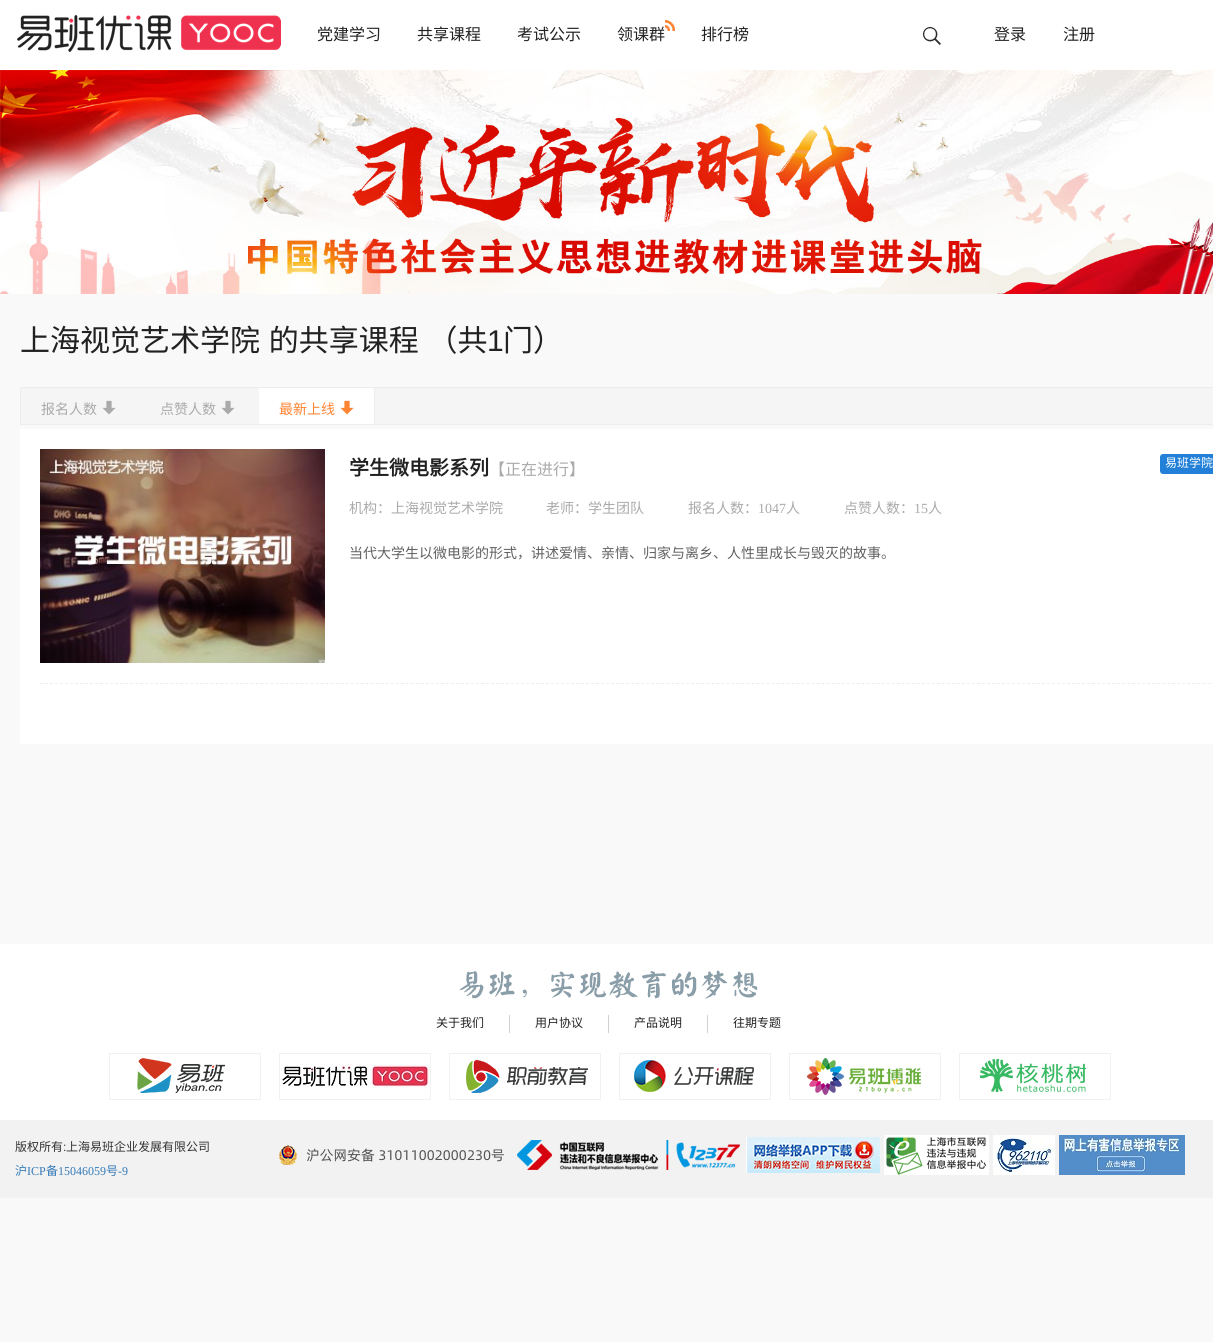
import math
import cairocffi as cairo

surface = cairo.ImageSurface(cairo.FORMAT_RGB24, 1213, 1342)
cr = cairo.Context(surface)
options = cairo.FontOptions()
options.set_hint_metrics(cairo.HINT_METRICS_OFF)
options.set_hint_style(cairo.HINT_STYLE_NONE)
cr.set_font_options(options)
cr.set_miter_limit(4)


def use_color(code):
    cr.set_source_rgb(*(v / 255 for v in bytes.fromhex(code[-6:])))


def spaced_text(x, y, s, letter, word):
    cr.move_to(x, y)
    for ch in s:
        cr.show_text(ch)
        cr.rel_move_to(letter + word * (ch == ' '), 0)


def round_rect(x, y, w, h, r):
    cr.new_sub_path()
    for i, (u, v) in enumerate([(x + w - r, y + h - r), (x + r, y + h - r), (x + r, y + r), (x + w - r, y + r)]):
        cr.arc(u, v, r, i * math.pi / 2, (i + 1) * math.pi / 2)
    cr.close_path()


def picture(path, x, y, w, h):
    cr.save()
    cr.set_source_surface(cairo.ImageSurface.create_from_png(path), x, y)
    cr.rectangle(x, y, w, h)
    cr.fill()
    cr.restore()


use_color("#f9f9f9")
cr.paint()
use_color("#ffffff")
cr.rectangle(0, 0, 1213, 70)
cr.fill()
picture("img1.png", 17, 15, 264, 37)
cr.select_font_face("Noto Sans CJK SC")
cr.set_font_size(16)
use_color("#212121")
cr.move_to(317, 40)
cr.show_text("党建学习")
cr.move_to(417, 40)
cr.show_text("共享课程")
cr.move_to(517, 40)
cr.show_text("考试公示")
cr.move_to(617, 40)
cr.show_text("领课群")
picture("img2.png", 665, 20, 10, 11)
cr.move_to(701, 40)
cr.show_text("排行榜")
picture("img3.png", 923, 27, 18, 18)
cr.move_to(994, 40)
cr.show_text("登录")
cr.move_to(1063, 40)
cr.show_text("注册")
picture("img4.png", 0, 70, 1213, 224)
cr.set_font_size(30)
spaced_text(20, 351, "上海视觉艺术学院 的共享课程 （共", 0, 2)
cr.select_font_face("Liberation Sans")
cr.move_to(487, 351)
cr.show_text("1")
cr.select_font_face("Noto Sans CJK SC")
cr.move_to(503, 351)
cr.show_text("门）")
use_color("#f5f5f5")
cr.rectangle(20.5, 387.5, 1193, 37)
cr.fill_preserve()
use_color("#ededed")
cr.set_line_width(1)
cr.stroke()
cr.set_font_size(14)
use_color("#aaaaaa")
cr.move_to(41, 414)
cr.show_text("报名人数")
picture("img5.png", 102, 400, 14, 15)
cr.move_to(160, 414)
cr.show_text("点赞人数")
picture("img5.png", 221, 400, 14, 15)
use_color("#ffffff")
cr.rectangle(259, 388, 115, 36)
cr.fill()
use_color("#ededed")
cr.rectangle(374, 388, 1, 36)
cr.fill()
use_color("#fe8333")
cr.move_to(279, 414)
cr.show_text("最新上线")
picture("img6.png", 340, 400, 14, 15)
use_color("#ffffff")
cr.rectangle(20, 429, 1193, 315)
cr.fill()
cr.new_path()
cr.move_to(40, 683.5)
cr.line_to(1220, 683.5)
use_color("#ededed")
cr.set_dash([3, 2.01])
cr.stroke()
picture("img7.png", 40, 449, 285, 214)
cr.select_font_face("Noto Sans CJK SC", cairo.FONT_SLANT_NORMAL, cairo.FONT_WEIGHT_BOLD)
cr.set_font_size(20)
use_color("#212121")
cr.move_to(349, 475)
cr.show_text("学生微电影系列")
cr.select_font_face("Noto Sans CJK SC")
cr.set_font_size(16)
use_color("#aaaaaa")
cr.move_to(489, 475)
cr.show_text("【正在进行】")
use_color("#2280d9")
round_rect(1160, 454, 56, 20, 3)
cr.fill()
cr.set_font_size(12)
use_color("#ffffff")
cr.move_to(1165, 467)
cr.show_text("易班学院")
cr.set_font_size(14)
use_color("#aaaaaa")
cr.move_to(349, 513)
cr.show_text("机构：上海视觉艺术学院")
cr.move_to(546, 513)
cr.show_text("老师：学生团队")
cr.move_to(688, 513)
cr.show_text("报名人数：")
cr.select_font_face("Liberation Serif")
cr.move_to(758, 513)
cr.show_text("1047")
cr.select_font_face("Noto Sans CJK SC")
cr.move_to(786, 513)
cr.show_text("人")
cr.move_to(844, 513)
cr.show_text("点赞人数：")
cr.select_font_face("Liberation Serif")
cr.move_to(914, 513)
cr.show_text("15")
cr.select_font_face("Noto Sans CJK SC")
cr.move_to(928, 513)
cr.show_text("人")
use_color("#616161")
cr.move_to(349, 558)
cr.show_text("当代大学生以微电影的形式，讲述爱情、亲情、归家与离乡、人性里成长与毁灭的故事。")
use_color("#ffffff")
cr.rectangle(0, 944, 1213, 176)
cr.fill()
picture("img8.png", 459, 970, 299, 29)
cr.set_font_size(12)
use_color("#212121")
cr.move_to(436, 1027)
cr.show_text("关于我们")
use_color("#d0d0d0")
cr.rectangle(509, 1015, 1, 18)
cr.fill()
use_color("#212121")
cr.move_to(535, 1027)
cr.show_text("用户协议")
use_color("#d0d0d0")
cr.rectangle(608, 1015, 1, 18)
cr.fill()
use_color("#212121")
cr.move_to(634, 1027)
cr.show_text("产品说明")
use_color("#d0d0d0")
cr.rectangle(707, 1015, 1, 18)
cr.fill()
use_color("#212121")
cr.move_to(733, 1027)
cr.show_text("往期专题")
cr.rectangle(109.5, 1053.5, 151, 46)
use_color("#f1f1f1")
cr.set_dash([])
cr.stroke()
picture("img9.png", 137, 1058, 88, 37)
cr.rectangle(279.5, 1053.5, 151, 46)
cr.stroke()
picture("img10.png", 281, 1064, 149, 25)
cr.rectangle(449.5, 1053.5, 151, 46)
cr.stroke()
picture("img11.png", 466, 1060, 122, 35)
cr.rectangle(619.5, 1053.5, 151, 46)
cr.stroke()
picture("img12.png", 634, 1057, 120, 35)
cr.rectangle(789.5, 1053.5, 151, 46)
cr.stroke()
picture("img13.png", 807, 1058, 114, 37)
cr.rectangle(959.5, 1053.5, 151, 46)
cr.stroke()
picture("img14.png", 978, 1056, 109, 37)
use_color("#f2f2f2")
cr.rectangle(0, 1120, 1213, 78)
cr.fill()
use_color("#333333")
cr.move_to(15, 1151)
cr.show_text("版权所有")
cr.select_font_face("Liberation Sans")
cr.move_to(63, 1151)
cr.show_text(":")
cr.select_font_face("Noto Sans CJK SC")
cr.move_to(66, 1151)
cr.show_text("上海易班企业发展有限公司")
use_color("#337ab7")
cr.move_to(15, 1175)
cr.show_text("沪")
cr.select_font_face("Liberation Serif")
cr.move_to(27, 1175)
cr.show_text("ICP")
cr.select_font_face("Noto Sans CJK SC")
cr.move_to(46, 1175)
cr.show_text("备")
cr.select_font_face("Liberation Serif")
cr.move_to(58, 1175)
cr.show_text("15046059")
cr.select_font_face("Noto Sans CJK SC")
cr.move_to(106, 1175)
cr.show_text("号")
cr.select_font_face("Liberation Serif")
cr.move_to(118, 1175)
cr.show_text("-9")
picture("img15.png", 279, 1145, 225, 20)
picture("img16.png", 517, 1140, 223, 30)
picture("img17.png", 746, 1137, 134, 36)
picture("img18.png", 884, 1135, 105, 40)
picture("img19.png", 993, 1135, 62, 40)
picture("img20.png", 1059, 1135, 126, 40)
surface.write_to_png("result.png")
